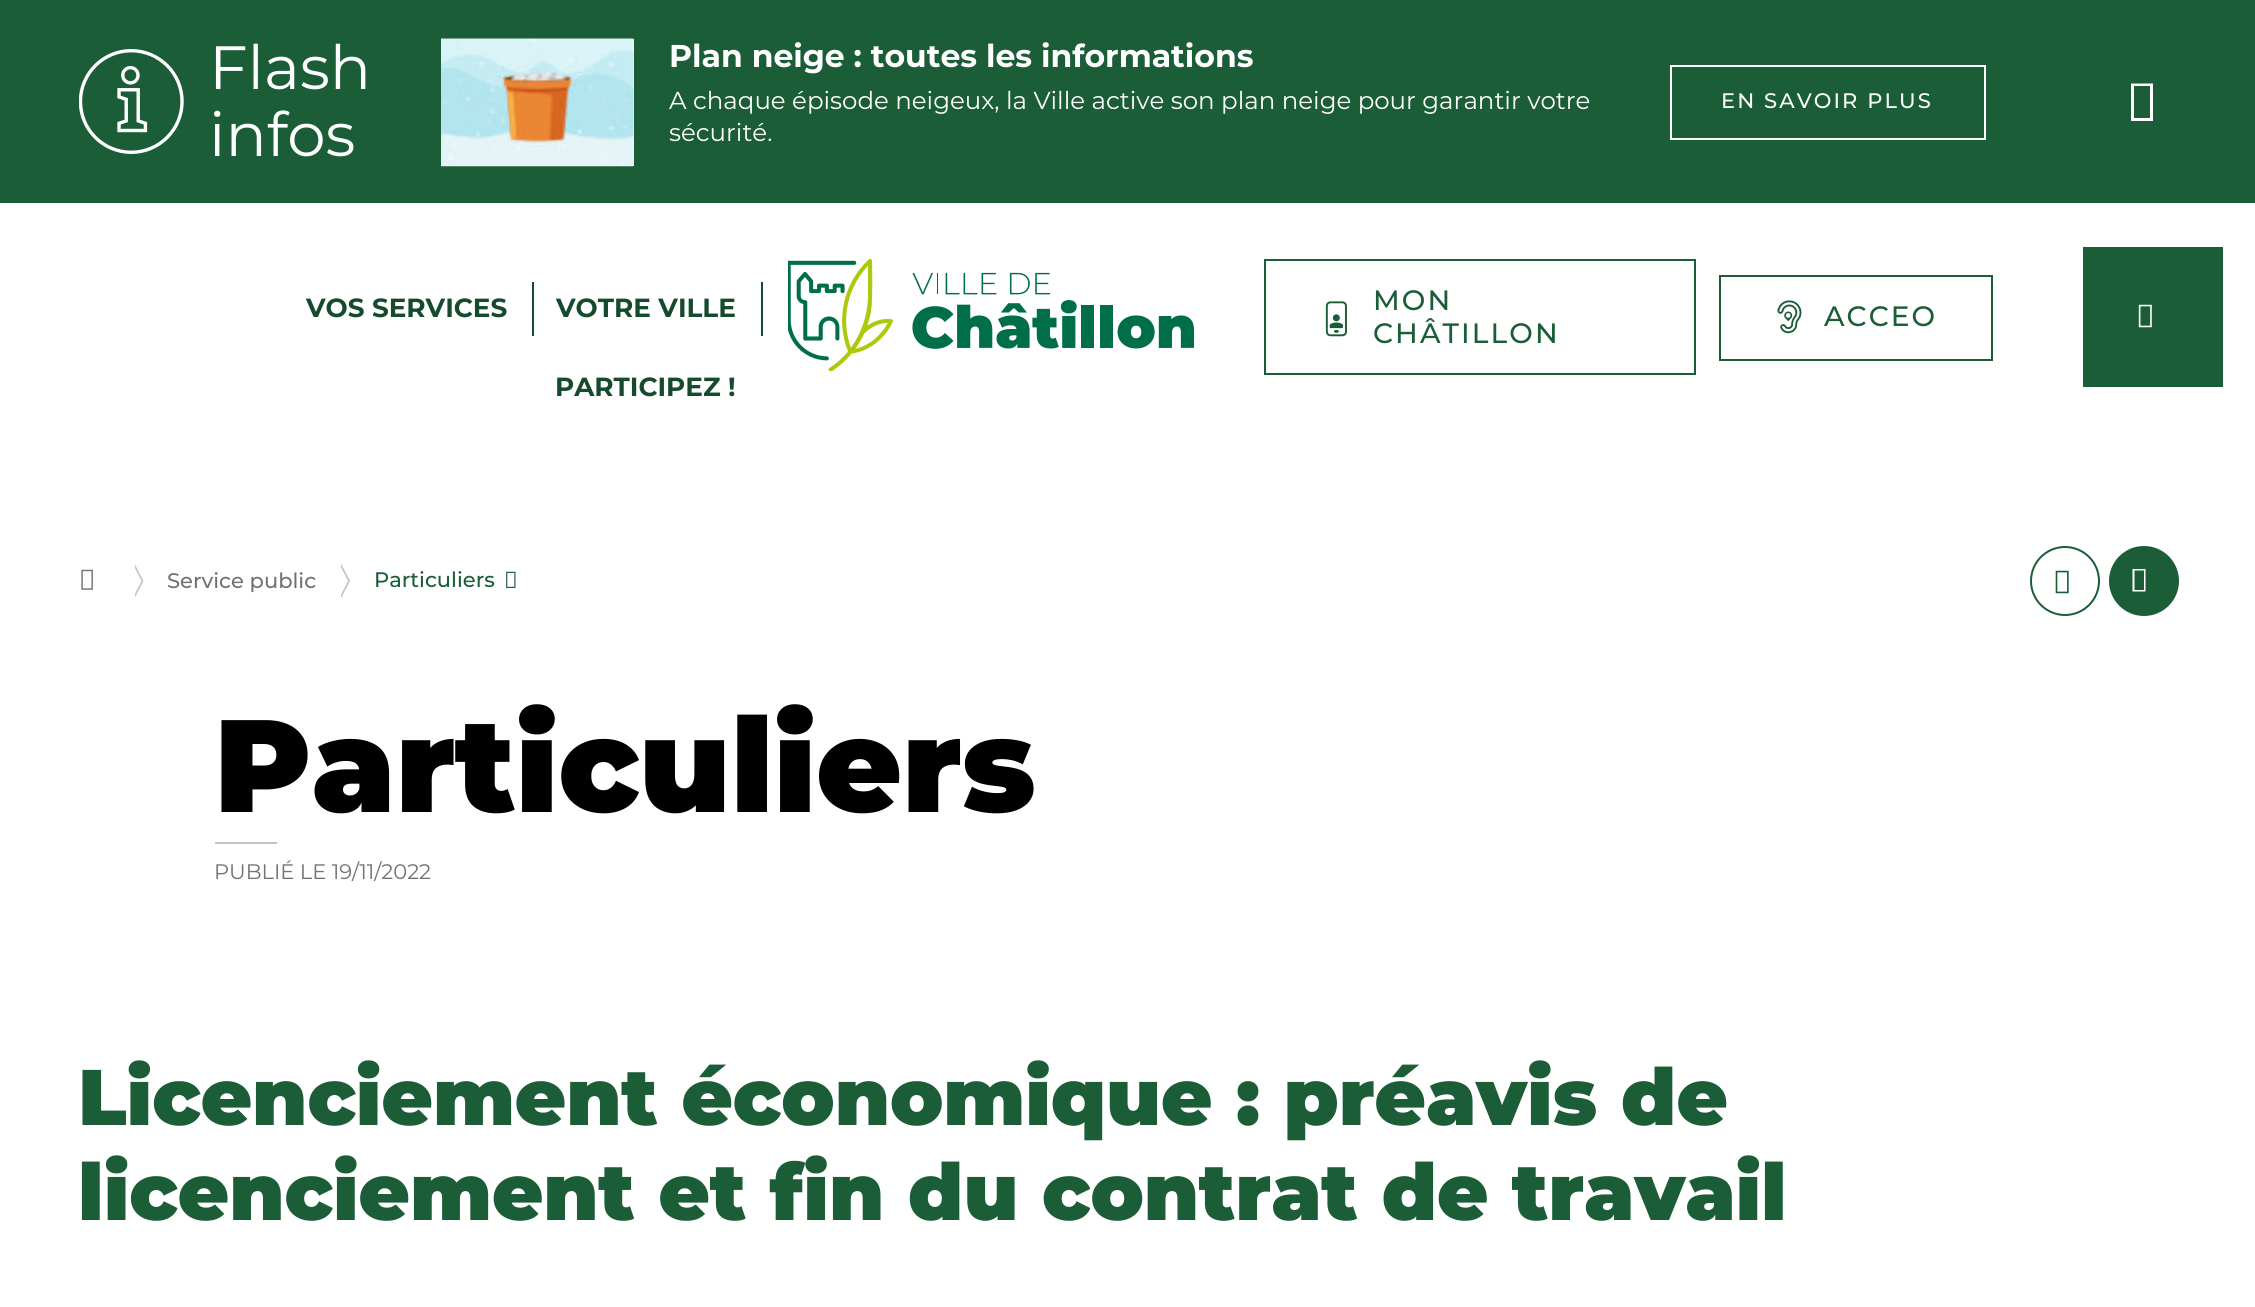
import math
import cairocffi as cairo

surface = cairo.ImageSurface(cairo.FORMAT_RGB24, 2255, 1307)
cr = cairo.Context(surface)
options = cairo.FontOptions()
options.set_hint_metrics(cairo.HINT_METRICS_OFF)
options.set_hint_style(cairo.HINT_STYLE_NONE)
cr.set_font_options(options)
cr.set_miter_limit(4)


def use_color(code):
    cr.set_source_rgb(*(v / 255 for v in bytes.fromhex(code[-6:])))


def spaced_text(x, y, s, letter, word):
    cr.move_to(x, y)
    for ch in s:
        cr.show_text(ch)
        cr.rel_move_to(letter + word * (ch == ' '), 0)


def picture(path, x, y, w, h):
    cr.save()
    cr.set_source_surface(cairo.ImageSurface.create_from_png(path), x, y)
    cr.rectangle(x, y, w, h)
    cr.fill()
    cr.restore()


use_color("#ffffff")
cr.paint()
use_color("#1a5d36")
cr.rectangle(0, 0, 2255, 203)
cr.fill()
picture("img1.png", 79, 49, 105, 105)
cr.select_font_face("Montserrat")
cr.set_font_size(61)
use_color("#ffffff")
cr.move_to(209, 89)
cr.show_text("Flash")
cr.move_to(209, 156)
cr.show_text("infos")
use_color("#f7f7f7")
cr.rectangle(633, 39, 1, 127)
cr.fill()
picture("img2.png", 441, 38, 193, 129)
cr.select_font_face("Montserrat", cairo.FONT_SLANT_NORMAL, cairo.FONT_WEIGHT_BOLD)
cr.set_font_size(31.5)
use_color("#ffffff")
cr.move_to(669, 67)
cr.show_text("Plan neige : toutes les informations")
cr.select_font_face("Montserrat")
cr.set_font_size(24.5)
cr.move_to(669, 109)
cr.show_text("A chaque épisode neigeux, la Ville active son plan neige pour garantir votre")
cr.move_to(669, 141)
cr.show_text("sécurité.")
cr.rectangle(1671, 66, 314, 73)
cr.stroke()
cr.select_font_face("Montserrat Medium")
cr.set_font_size(21)
spaced_text(1721, 108, "EN SAVOIR PLUS", 2.1, 0)
cr.new_path()
cr.move_to(2131, 121)
cr.line_to(2131, 83.5)
cr.line_to(2153, 83.5)
cr.line_to(2153, 121)
cr.close_path()
cr.move_to(2134, 118)
cr.line_to(2150, 118)
cr.line_to(2150, 86)
cr.line_to(2134, 86)
cr.close_path()
cr.fill()
cr.select_font_face("Montserrat", cairo.FONT_SLANT_NORMAL, cairo.FONT_WEIGHT_BOLD)
cr.set_font_size(26.25)
use_color("#154b2c")
cr.move_to(306, 317)
cr.show_text("VOS SERVICES")
cr.rectangle(532, 282, 2, 54)
cr.fill()
cr.move_to(556, 317)
cr.show_text("VOTRE VILLE")
cr.rectangle(761, 282, 2, 54)
cr.fill()
cr.move_to(555, 396)
cr.show_text("PARTICIPEZ !")
picture("img3.png", 788, 259, 406, 112)
cr.rectangle(1265, 260, 430, 114)
use_color("#1a5d36")
cr.stroke()
picture("img4.png", 1325, 301, 22, 36)
cr.select_font_face("Montserrat Medium")
cr.set_font_size(28)
spaced_text(1373, 310, "MON", 2.1, 0)
spaced_text(1373, 343, "CHÂTILLON", 2.1, 0)
cr.rectangle(1720, 276, 272, 84)
cr.stroke()
picture("img5.png", 1777, 300, 25, 34)
spaced_text(1824, 326, "ACCEO", 2.1, 0)
cr.rectangle(2083, 247, 140, 140)
cr.fill()
picture("img6.png", 2138, 304, 14, 24)
picture("img7.png", 81, 569, 12, 21)
cr.save()
cr.rectangle(135, 564, 9, 35)
cr.clip()
use_color("#c5c5c5")
cr.new_path()
cr.move_to(134.5, 598.5)
cr.line_to(133, 597.5)
cr.line_to(141.5, 581)
cr.line_to(133, 564.5)
cr.line_to(134.5, 563.5)
cr.line_to(143.5, 581)
cr.close_path()
cr.fill()
cr.restore()
cr.set_font_size(21)
use_color("#727272")
cr.move_to(167, 588)
cr.show_text("Service public")
cr.save()
cr.rectangle(341, 564, 9, 35)
cr.clip()
use_color("#c5c5c5")
cr.new_path()
cr.move_to(341, 598.5)
cr.line_to(339.5, 597.5)
cr.line_to(348, 581)
cr.line_to(339.5, 564.5)
cr.line_to(341, 563.5)
cr.line_to(350, 581)
cr.close_path()
cr.fill()
cr.restore()
use_color("#1a5d36")
cr.move_to(374, 587)
cr.show_text("Particuliers")
picture("img8.png", 506, 571, 10, 17)
cr.arc(2065, 581, 34, 0, 2 * math.pi)
cr.stroke()
picture("img9.png", 2055, 570, 14, 24)
cr.arc(2144, 581, 34, 0, 2 * math.pi)
cr.fill_preserve()
cr.stroke()
use_color("#ffffff")
cr.new_path()
cr.move_to(2132.5, 591.5)
cr.line_to(2132.5, 569)
cr.line_to(2145.5, 569)
cr.line_to(2145.5, 591.5)
cr.close_path()
cr.move_to(2134.5, 590)
cr.line_to(2144, 590)
cr.line_to(2144, 570.5)
cr.line_to(2134.5, 570.5)
cr.close_path()
cr.fill()
cr.select_font_face("Montserrat Black")
cr.set_font_size(131.25)
use_color("#000000")
cr.move_to(214, 812)
cr.show_text("Particuliers")
use_color("#c5c5c5")
cr.rectangle(215, 842, 62, 2)
cr.fill()
cr.select_font_face("Montserrat")
cr.set_font_size(21)
use_color("#727272")
cr.move_to(214, 879)
cr.show_text("PUBLIÉ LE 19/11/2022")
cr.select_font_face("Montserrat Black")
cr.set_font_size(78.75)
use_color("#1a5d36")
cr.move_to(78, 1125)
cr.show_text("Licenciement économique : préavis de")
cr.move_to(78, 1220)
cr.show_text("licenciement et fin du contrat de travail")
surface.write_to_png("result.png")
